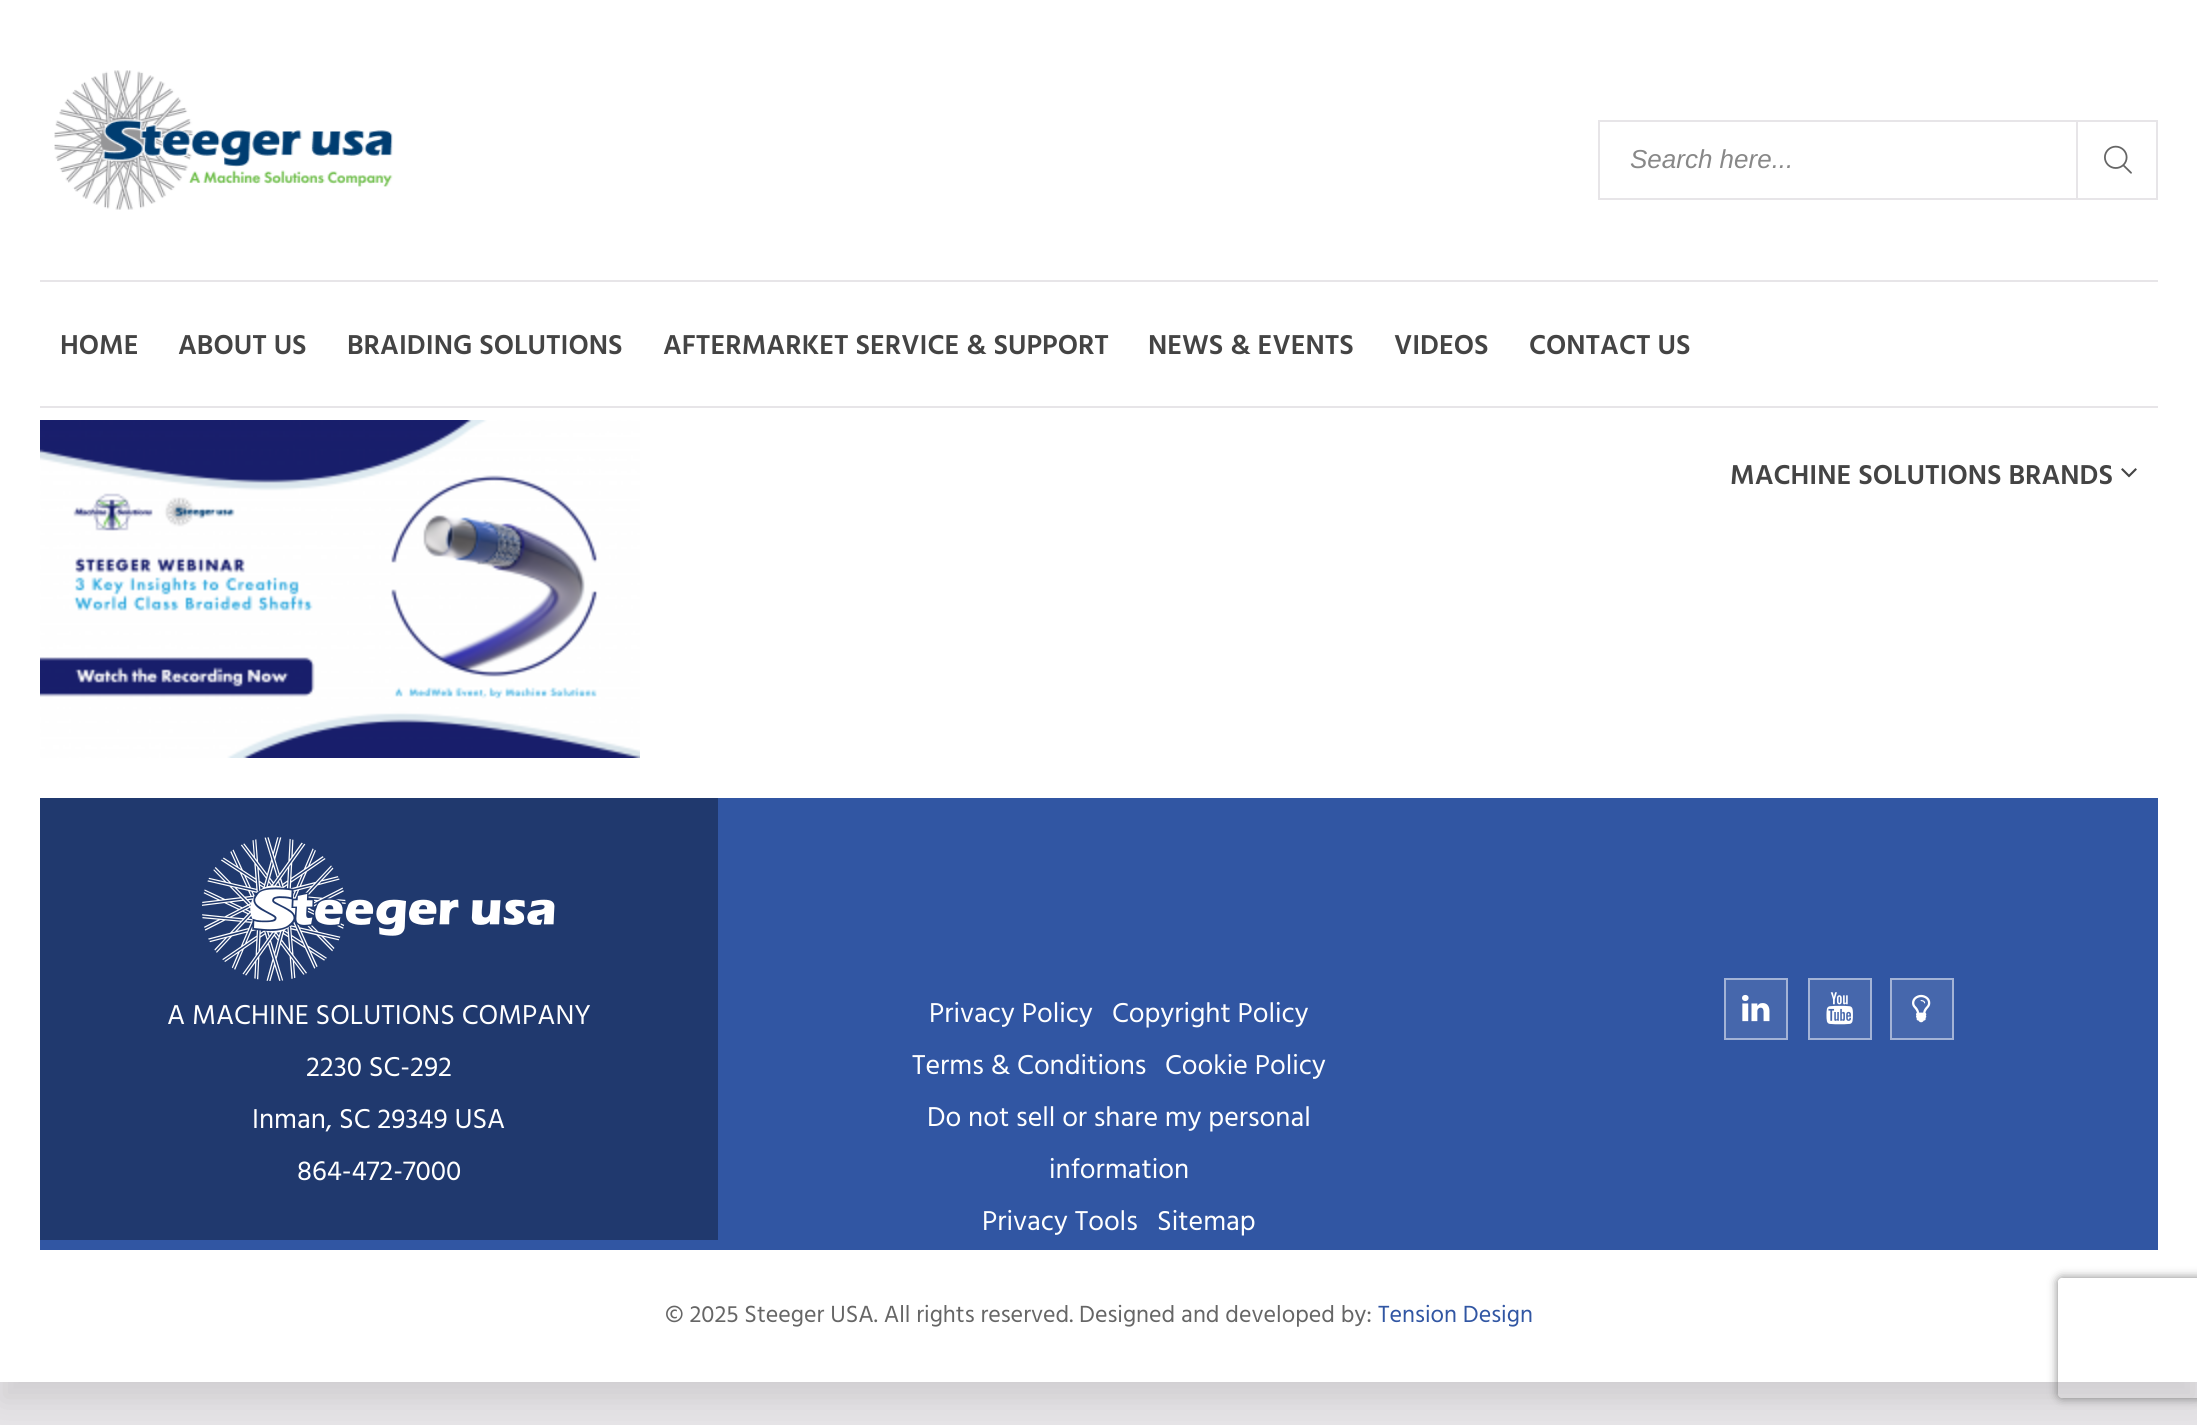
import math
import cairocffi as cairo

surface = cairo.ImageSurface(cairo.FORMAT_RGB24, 2197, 1425)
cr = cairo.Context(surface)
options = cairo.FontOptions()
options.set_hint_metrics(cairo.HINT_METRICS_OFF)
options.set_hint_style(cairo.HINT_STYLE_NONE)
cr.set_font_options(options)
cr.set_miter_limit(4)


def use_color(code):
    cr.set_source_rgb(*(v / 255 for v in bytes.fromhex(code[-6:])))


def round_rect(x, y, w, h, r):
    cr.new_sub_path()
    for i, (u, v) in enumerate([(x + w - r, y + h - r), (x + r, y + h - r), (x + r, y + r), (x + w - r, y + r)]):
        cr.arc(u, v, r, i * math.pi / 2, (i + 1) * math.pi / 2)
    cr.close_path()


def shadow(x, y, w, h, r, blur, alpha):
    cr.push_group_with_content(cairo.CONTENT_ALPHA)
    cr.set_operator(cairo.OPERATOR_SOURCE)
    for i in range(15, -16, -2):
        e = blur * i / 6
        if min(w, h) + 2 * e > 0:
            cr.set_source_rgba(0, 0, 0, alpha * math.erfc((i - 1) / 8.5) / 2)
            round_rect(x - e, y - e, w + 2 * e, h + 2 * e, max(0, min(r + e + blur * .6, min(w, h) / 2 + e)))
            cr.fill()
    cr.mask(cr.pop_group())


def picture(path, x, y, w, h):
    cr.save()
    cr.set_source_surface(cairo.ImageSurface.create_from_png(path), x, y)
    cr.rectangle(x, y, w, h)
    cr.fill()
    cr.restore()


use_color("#e7e5e8")
cr.paint()
use_color("#000000")
shadow(0, 20, 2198, 1382, 0, 16, 0.1)
use_color("#ffffff")
cr.rectangle(0, 0, 2197, 1382)
cr.fill()
picture("img1.png", 54, 70, 339, 140)
cr.rectangle(1599, 121, 478, 78)
use_color("#e7e5e8")
cr.stroke()
cr.select_font_face("Liberation Sans", cairo.FONT_SLANT_ITALIC)
cr.set_font_size(26)
use_color("#888888")
cr.move_to(1630, 168)
cr.show_text("Search here...")
use_color("#e7e5e8")
cr.rectangle(2078, 120, 80, 2)
cr.fill()
cr.rectangle(2156, 120, 2, 80)
cr.fill()
cr.rectangle(2078, 198, 80, 2)
cr.fill()
picture("img2.png", 2104, 145, 28, 29)
cr.rectangle(40, 280, 2118, 2)
cr.fill()
cr.rectangle(40, 406, 2118, 2)
cr.fill()
cr.select_font_face("Hind SemiBold")
cr.set_font_size(28)
use_color("#444444")
cr.move_to(60, 354)
cr.show_text("HOME")
cr.move_to(178, 354)
cr.show_text("ABOUT US")
cr.move_to(347, 354)
cr.show_text("BRAIDING SOLUTIONS")
cr.move_to(663, 354)
cr.show_text("AFTERMARKET SERVICE & SUPPORT")
cr.move_to(1148, 354)
cr.show_text("NEWS & EVENTS")
cr.move_to(1394, 354)
cr.show_text("VIDEOS")
cr.move_to(1529, 354)
cr.show_text("CONTACT US")
cr.move_to(1730, 484)
cr.show_text("MACHINE SOLUTIONS BRANDS")
picture("img3.png", 2121, 468, 16, 10)
picture("img4.png", 40, 420, 600, 338)
use_color("#3156a3")
cr.rectangle(40, 798, 2118, 452)
cr.fill()
use_color("#20396e")
cr.rectangle(40, 798, 678, 442)
cr.fill()
picture("img5.png", 202, 837, 353, 144)
cr.select_font_face("Hind")
use_color("#ffffff")
cr.move_to(167, 1024)
cr.show_text("A MACHINE SOLUTIONS COMPANY")
cr.move_to(306, 1076)
cr.show_text("2230 SC-292")
cr.move_to(252, 1128)
cr.show_text("Inman, SC 29349 USA")
cr.move_to(297, 1180)
cr.show_text("864-472-7000")
cr.move_to(929, 1022)
cr.show_text("Privacy Policy")
cr.move_to(1112, 1022)
cr.show_text("Copyright Policy")
cr.move_to(912, 1074)
cr.show_text("Terms & Conditions")
cr.move_to(1165, 1074)
cr.show_text("Cookie Policy")
cr.move_to(927, 1126)
cr.show_text("Do not sell or share my personal")
cr.move_to(1049, 1178)
cr.show_text("information")
cr.move_to(982, 1230)
cr.show_text("Privacy Tools")
cr.move_to(1157, 1230)
cr.show_text("Sitemap")
use_color("#4667ac")
cr.rectangle(1725, 979, 62, 60)
cr.fill_preserve()
use_color("#a3b3d6")
cr.stroke()
picture("img6.png", 1742, 994, 28, 28)
use_color("#4667ac")
cr.rectangle(1809, 979, 62, 60)
cr.fill_preserve()
use_color("#a3b3d6")
cr.stroke()
picture("img7.png", 1826, 992, 27, 33)
use_color("#4667ac")
cr.rectangle(1891, 979, 62, 60)
cr.fill_preserve()
use_color("#a3b3d6")
cr.stroke()
picture("img8.png", 1912, 994, 19, 29)
cr.set_font_size(24)
use_color("#666666")
cr.move_to(665, 1322)
cr.show_text("© 2025 Steeger USA. All rights reserved. Designed and developed by:")
use_color("#3156a3")
cr.move_to(1378, 1322)
cr.show_text("Tension Design")
cr.save()
cr.set_fill_rule(cairo.FILL_RULE_EVEN_ODD)
cr.new_path()
cr.move_to(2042, 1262)
cr.line_to(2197, 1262)
cr.line_to(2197, 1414)
cr.line_to(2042, 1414)
cr.close_path()
cr.move_to(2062, 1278)
cr.line_to(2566, 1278)
cr.curve_to(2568, 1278, 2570, 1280, 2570, 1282)
cr.line_to(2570, 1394)
cr.curve_to(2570, 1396, 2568, 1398, 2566, 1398)
cr.line_to(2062, 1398)
cr.curve_to(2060, 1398, 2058, 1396, 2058, 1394)
cr.line_to(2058, 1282)
cr.curve_to(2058, 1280, 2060, 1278, 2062, 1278)
cr.close_path()
cr.clip()
use_color("#808080")
shadow(2058, 1278, 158, 120, 4, 5, 1)
cr.restore()
surface.write_to_png("result.png")
